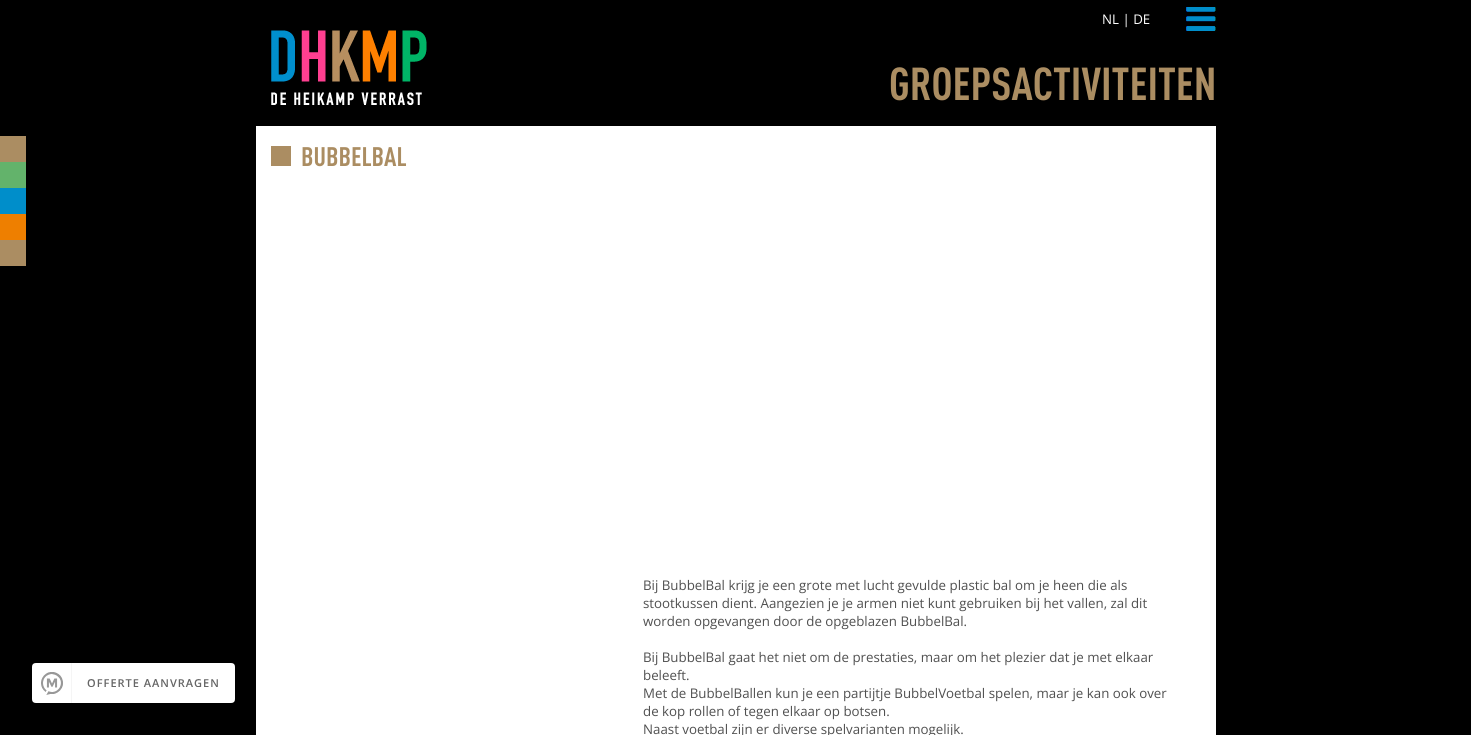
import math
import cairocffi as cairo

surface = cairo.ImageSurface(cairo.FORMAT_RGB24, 1471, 735)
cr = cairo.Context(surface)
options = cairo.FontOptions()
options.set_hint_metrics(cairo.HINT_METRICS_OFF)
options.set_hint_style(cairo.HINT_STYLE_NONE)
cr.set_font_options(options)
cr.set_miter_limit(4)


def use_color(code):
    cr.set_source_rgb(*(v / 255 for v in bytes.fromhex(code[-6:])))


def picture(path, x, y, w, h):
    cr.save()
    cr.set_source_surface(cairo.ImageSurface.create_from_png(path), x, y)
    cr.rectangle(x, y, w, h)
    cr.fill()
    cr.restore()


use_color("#000000")
cr.paint()
cr.select_font_face("Open Sans")
cr.set_font_size(13.3)
use_color("#ffffff")
cr.move_to(1102, 24)
cr.show_text("NL | DE")
picture("img1.png", 1186, 7, 30, 24)
picture("img2.png", 271, 30, 156, 76)
cr.select_font_face("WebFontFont", cairo.FONT_SLANT_NORMAL, cairo.FONT_WEIGHT_BOLD)
cr.set_font_size(45.5)
use_color("#ab8d62")
cr.move_to(889, 100)
cr.show_text("GROEPSACTIVITEITEN")
cr.rectangle(0, 136, 26, 26)
cr.fill()
use_color("#63b36b")
cr.rectangle(0, 162, 26, 26)
cr.fill()
use_color("#008eca")
cr.rectangle(0, 188, 26, 26)
cr.fill()
use_color("#ee7f00")
cr.rectangle(0, 214, 26, 26)
cr.fill()
use_color("#ab8d62")
cr.rectangle(0, 240, 26, 26)
cr.fill()
picture("img3.png", 32, 663, 203, 40)
use_color("#ffffff")
cr.rectangle(256, 126, 960, 609)
cr.fill()
use_color("#ab8d62")
cr.rectangle(271, 146, 20, 20)
cr.fill()
cr.set_font_size(26.5)
cr.move_to(301, 166)
cr.show_text("BUBBELBAL")
cr.select_font_face("Open Sans")
cr.set_font_size(13.3)
use_color("#505050")
cr.move_to(643, 590)
cr.show_text("Bij BubbelBal krijg je een grote met lucht gevulde plastic bal om je heen die als")
cr.move_to(643, 608)
cr.show_text("stootkussen dient. Aangezien je je armen niet kunt gebruiken bij het vallen, zal dit")
cr.move_to(643, 626)
cr.show_text("worden opgevangen door de opgeblazen BubbelBal.")
cr.move_to(643, 662)
cr.show_text("Bij BubbelBal gaat het niet om de prestaties, maar om het plezier dat je met elkaar")
cr.move_to(643, 680)
cr.show_text("beleeft.")
cr.move_to(643, 698)
cr.show_text("Met de BubbelBallen kun je een partijtje BubbelVoetbal spelen, maar je kan ook over")
cr.move_to(643, 716)
cr.show_text("de kop rollen of tegen elkaar op botsen.")
cr.move_to(643, 734)
cr.show_text("Naast voetbal zijn er diverse spelvarianten mogelijk.")
surface.write_to_png("result.png")
